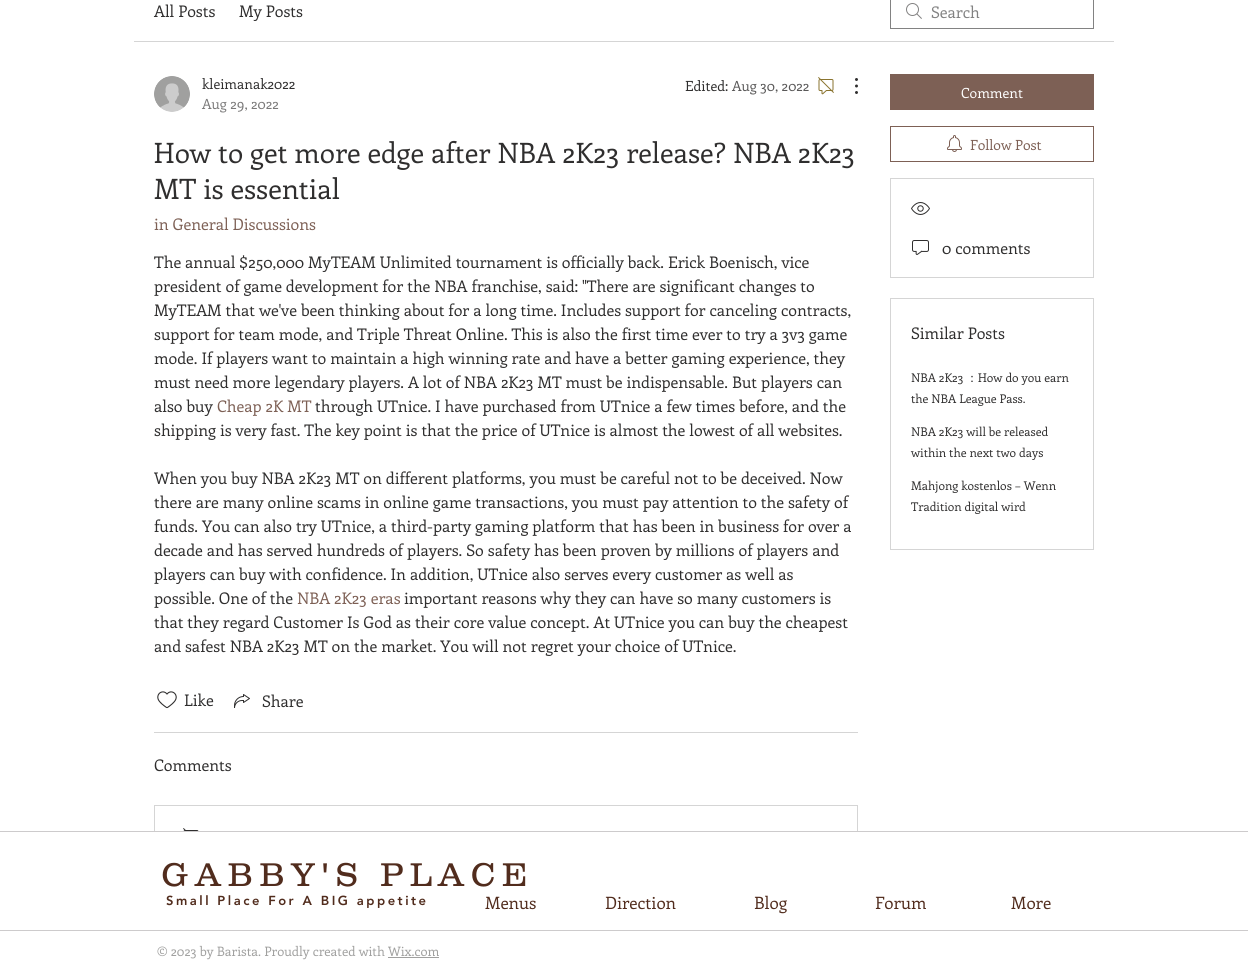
import math
import cairocffi as cairo

surface = cairo.ImageSurface(cairo.FORMAT_RGB24, 1248, 969)
cr = cairo.Context(surface)
options = cairo.FontOptions()
options.set_hint_metrics(cairo.HINT_METRICS_OFF)
options.set_hint_style(cairo.HINT_STYLE_NONE)
cr.set_font_options(options)
cr.set_miter_limit(4)


def use_color(code):
    cr.set_source_rgb(*(v / 255 for v in bytes.fromhex(code[-6:])))


def spaced_text(x, y, s, letter, word):
    cr.move_to(x, y)
    for ch in s:
        cr.show_text(ch)
        cr.rel_move_to(letter + word * (ch == ' '), 0)


def picture(path, x, y, w, h):
    cr.save()
    cr.set_source_surface(cairo.ImageSurface.create_from_png(path), x, y)
    cr.rectangle(x, y, w, h)
    cr.fill()
    cr.restore()


use_color("#ffffff")
cr.paint()
use_color("#d5d5d5")
cr.rectangle(134, 41, 980, 1)
cr.fill()
cr.select_font_face("Enriqueta")
cr.set_font_size(16)
use_color("#2f2e2e")
cr.move_to(154, 17)
cr.show_text("All Posts")
cr.move_to(239, 17)
cr.show_text("My Posts")
picture("img1.png", 906, 3, 16, 16)
cr.rectangle(890.5, -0.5, 203, 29)
use_color("#828282")
cr.set_line_width(1)
cr.stroke()
cr.move_to(931, 18)
cr.show_text("Search")
picture("img2.png", 154, 76, 36, 36)
cr.set_font_size(14)
use_color("#2f2e2e")
cr.move_to(202, 89)
cr.show_text("kleimanak2022")
use_color("#7a7979")
cr.move_to(202, 109)
cr.show_text("Aug 29, 2022")
use_color("#2f2e2e")
cr.move_to(685, 91)
cr.show_text("Edited:")
use_color("#595858")
cr.move_to(732, 91)
cr.show_text("Aug 30, 2022")
picture("img3.png", 818, 77, 16, 18)
picture("img4.png", 855, 78, 3, 16)
cr.set_font_size(28)
use_color("#2f2e2e")
cr.move_to(154, 163)
cr.show_text("How to get more edge after NBA 2K23 release? NBA 2K23")
cr.move_to(154, 199)
cr.show_text("MT is essential")
cr.set_font_size(16)
use_color("#7d6055")
cr.move_to(154, 230)
cr.show_text("in General Discussions")
use_color("#2f2e2e")
cr.move_to(154, 268)
cr.show_text("The annual $250,000 MyTEAM Unlimited tournament is officially back. Erick Boenisch, vice")
cr.move_to(154, 292)
cr.show_text("president of game development for the NBA franchise, said: \"There are significant changes to")
cr.move_to(154, 316)
cr.show_text("MyTEAM that we've been thinking about for a long time. Includes support for canceling contracts,")
cr.move_to(154, 340)
cr.show_text("support for team mode, and Triple Threat Online. This is also the first time ever to try a 3v3 game")
cr.move_to(154, 364)
cr.show_text("mode. If players want to maintain a high winning rate and have a better gaming experience, they")
cr.move_to(154, 388)
cr.show_text("must need more legendary players. A lot of NBA 2K23 MT must be indispensable. But players can")
cr.move_to(154, 412)
cr.show_text("also buy")
use_color("#7d6055")
cr.move_to(217, 412)
cr.show_text("Cheap 2K MT")
use_color("#2f2e2e")
cr.move_to(315, 412)
cr.show_text("through UTnice. I have purchased from UTnice a few times before, and the")
cr.move_to(154, 436)
cr.show_text("shipping is very fast. The key point is that the price of UTnice is almost the lowest of all websites.")
cr.move_to(154, 484)
cr.show_text("When you buy NBA 2K23 MT on different platforms, you must be careful not to be deceived. Now")
cr.move_to(154, 508)
cr.show_text("there are many online scams in online game transactions, you must pay attention to the safety of")
cr.move_to(154, 532)
cr.show_text("funds. You can also try UTnice, a third-party gaming platform that has been in business for over a")
cr.move_to(154, 556)
cr.show_text("decade and has served hundreds of players. So safety has been proven by millions of players and")
cr.move_to(154, 580)
cr.show_text("players can buy with confidence. In addition, UTnice also serves every customer as well as")
cr.move_to(154, 604)
cr.show_text("possible. One of the")
use_color("#7d6055")
cr.move_to(297, 604)
cr.show_text("NBA 2K23 eras")
use_color("#2f2e2e")
cr.move_to(404, 604)
cr.show_text("important reasons why they can have so many customers is")
cr.move_to(154, 628)
cr.show_text("that they regard Customer Is God as their core value concept. At UTnice you can buy the cheapest")
cr.move_to(154, 652)
cr.show_text("and safest NBA 2K23 MT on the market. You will not regret your choice of UTnice.")
picture("img5.png", 157, 691, 20, 18)
cr.move_to(184, 706)
cr.show_text("Like")
picture("img6.png", 234, 694, 16, 14)
cr.move_to(262, 707)
cr.show_text("Share")
use_color("#d5d5d5")
cr.rectangle(154, 732, 704, 1)
cr.fill()
use_color("#2f2e2e")
cr.move_to(154, 771)
cr.show_text("Comments")
cr.rectangle(154.5, 805.5, 703, 63)
use_color("#d5d5d5")
cr.stroke()
picture("img7.png", 183, 828, 16, 3)
use_color("#7d6055")
cr.rectangle(890, 74, 204, 36)
cr.fill()
cr.set_font_size(14)
use_color("#ffffff")
cr.move_to(961, 98)
cr.show_text("Comment")
cr.rectangle(890.5, 126.5, 203, 35)
use_color("#7d6055")
cr.stroke()
picture("img8.png", 947, 135, 15, 17)
cr.move_to(970, 150)
cr.show_text("Follow Post")
cr.rectangle(890.5, 178.5, 203, 99)
use_color("#d5d5d5")
cr.stroke()
picture("img9.png", 911, 202, 19, 13)
picture("img10.png", 912, 240, 17, 15)
cr.set_font_size(16)
use_color("#2f2e2e")
cr.move_to(942, 254)
cr.show_text("0 comments")
cr.rectangle(890.5, 298.5, 203, 251)
use_color("#d5d5d5")
cr.stroke()
use_color("#2f2e2e")
cr.move_to(911, 339)
cr.show_text("Similar Posts")
cr.set_font_size(12)
cr.move_to(911, 382)
cr.show_text("NBA 2K23")
cr.select_font_face("WenQuanYi Zen Hei Medium")
cr.move_to(966, 382)
cr.show_text("：")
cr.select_font_face("Enriqueta")
cr.move_to(978, 382)
cr.show_text("How do you earn")
cr.move_to(911, 403)
cr.show_text("the NBA League Pass.")
cr.move_to(911, 436)
cr.show_text("NBA 2K23 will be released")
cr.move_to(911, 457)
cr.show_text("within the next two days")
cr.move_to(911, 490)
cr.show_text("Mahjong kostenlos – Wenn")
cr.move_to(911, 511)
cr.show_text("Tradition digital wird")
use_color("#ffffff")
cr.rectangle(154, 832, 704, 37)
cr.fill()
use_color("#cdcbcc")
cr.rectangle(0, 831, 1248, 1)
cr.fill()
cr.select_font_face("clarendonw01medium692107 Light")
cr.set_font_size(34)
use_color("#512c1d")
spaced_text(161, 886, "GABBY'S PLACE", 6.75, 0)
cr.select_font_face("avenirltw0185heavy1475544 Black")
cr.set_font_size(13)
spaced_text(166, 905, "Small Place For A BIG appetite", 2.5, 0)
cr.select_font_face("Enriqueta")
cr.set_font_size(17)
cr.move_to(485, 909)
cr.show_text("Menus")
cr.move_to(605, 909)
cr.show_text("Direction")
cr.move_to(754, 909)
cr.show_text("Blog")
cr.move_to(875, 909)
cr.show_text("Forum")
cr.move_to(1011, 909)
cr.show_text("More")
use_color("#cdcbcc")
cr.rectangle(0, 930, 1248, 1)
cr.fill()
cr.set_font_size(13)
use_color("#a0a09f")
cr.move_to(157, 956)
cr.show_text("© 2023 by Barista. Proudly created with Wix.com")
cr.rectangle(388, 957, 51, 1)
cr.fill()
surface.write_to_png("result.png")
